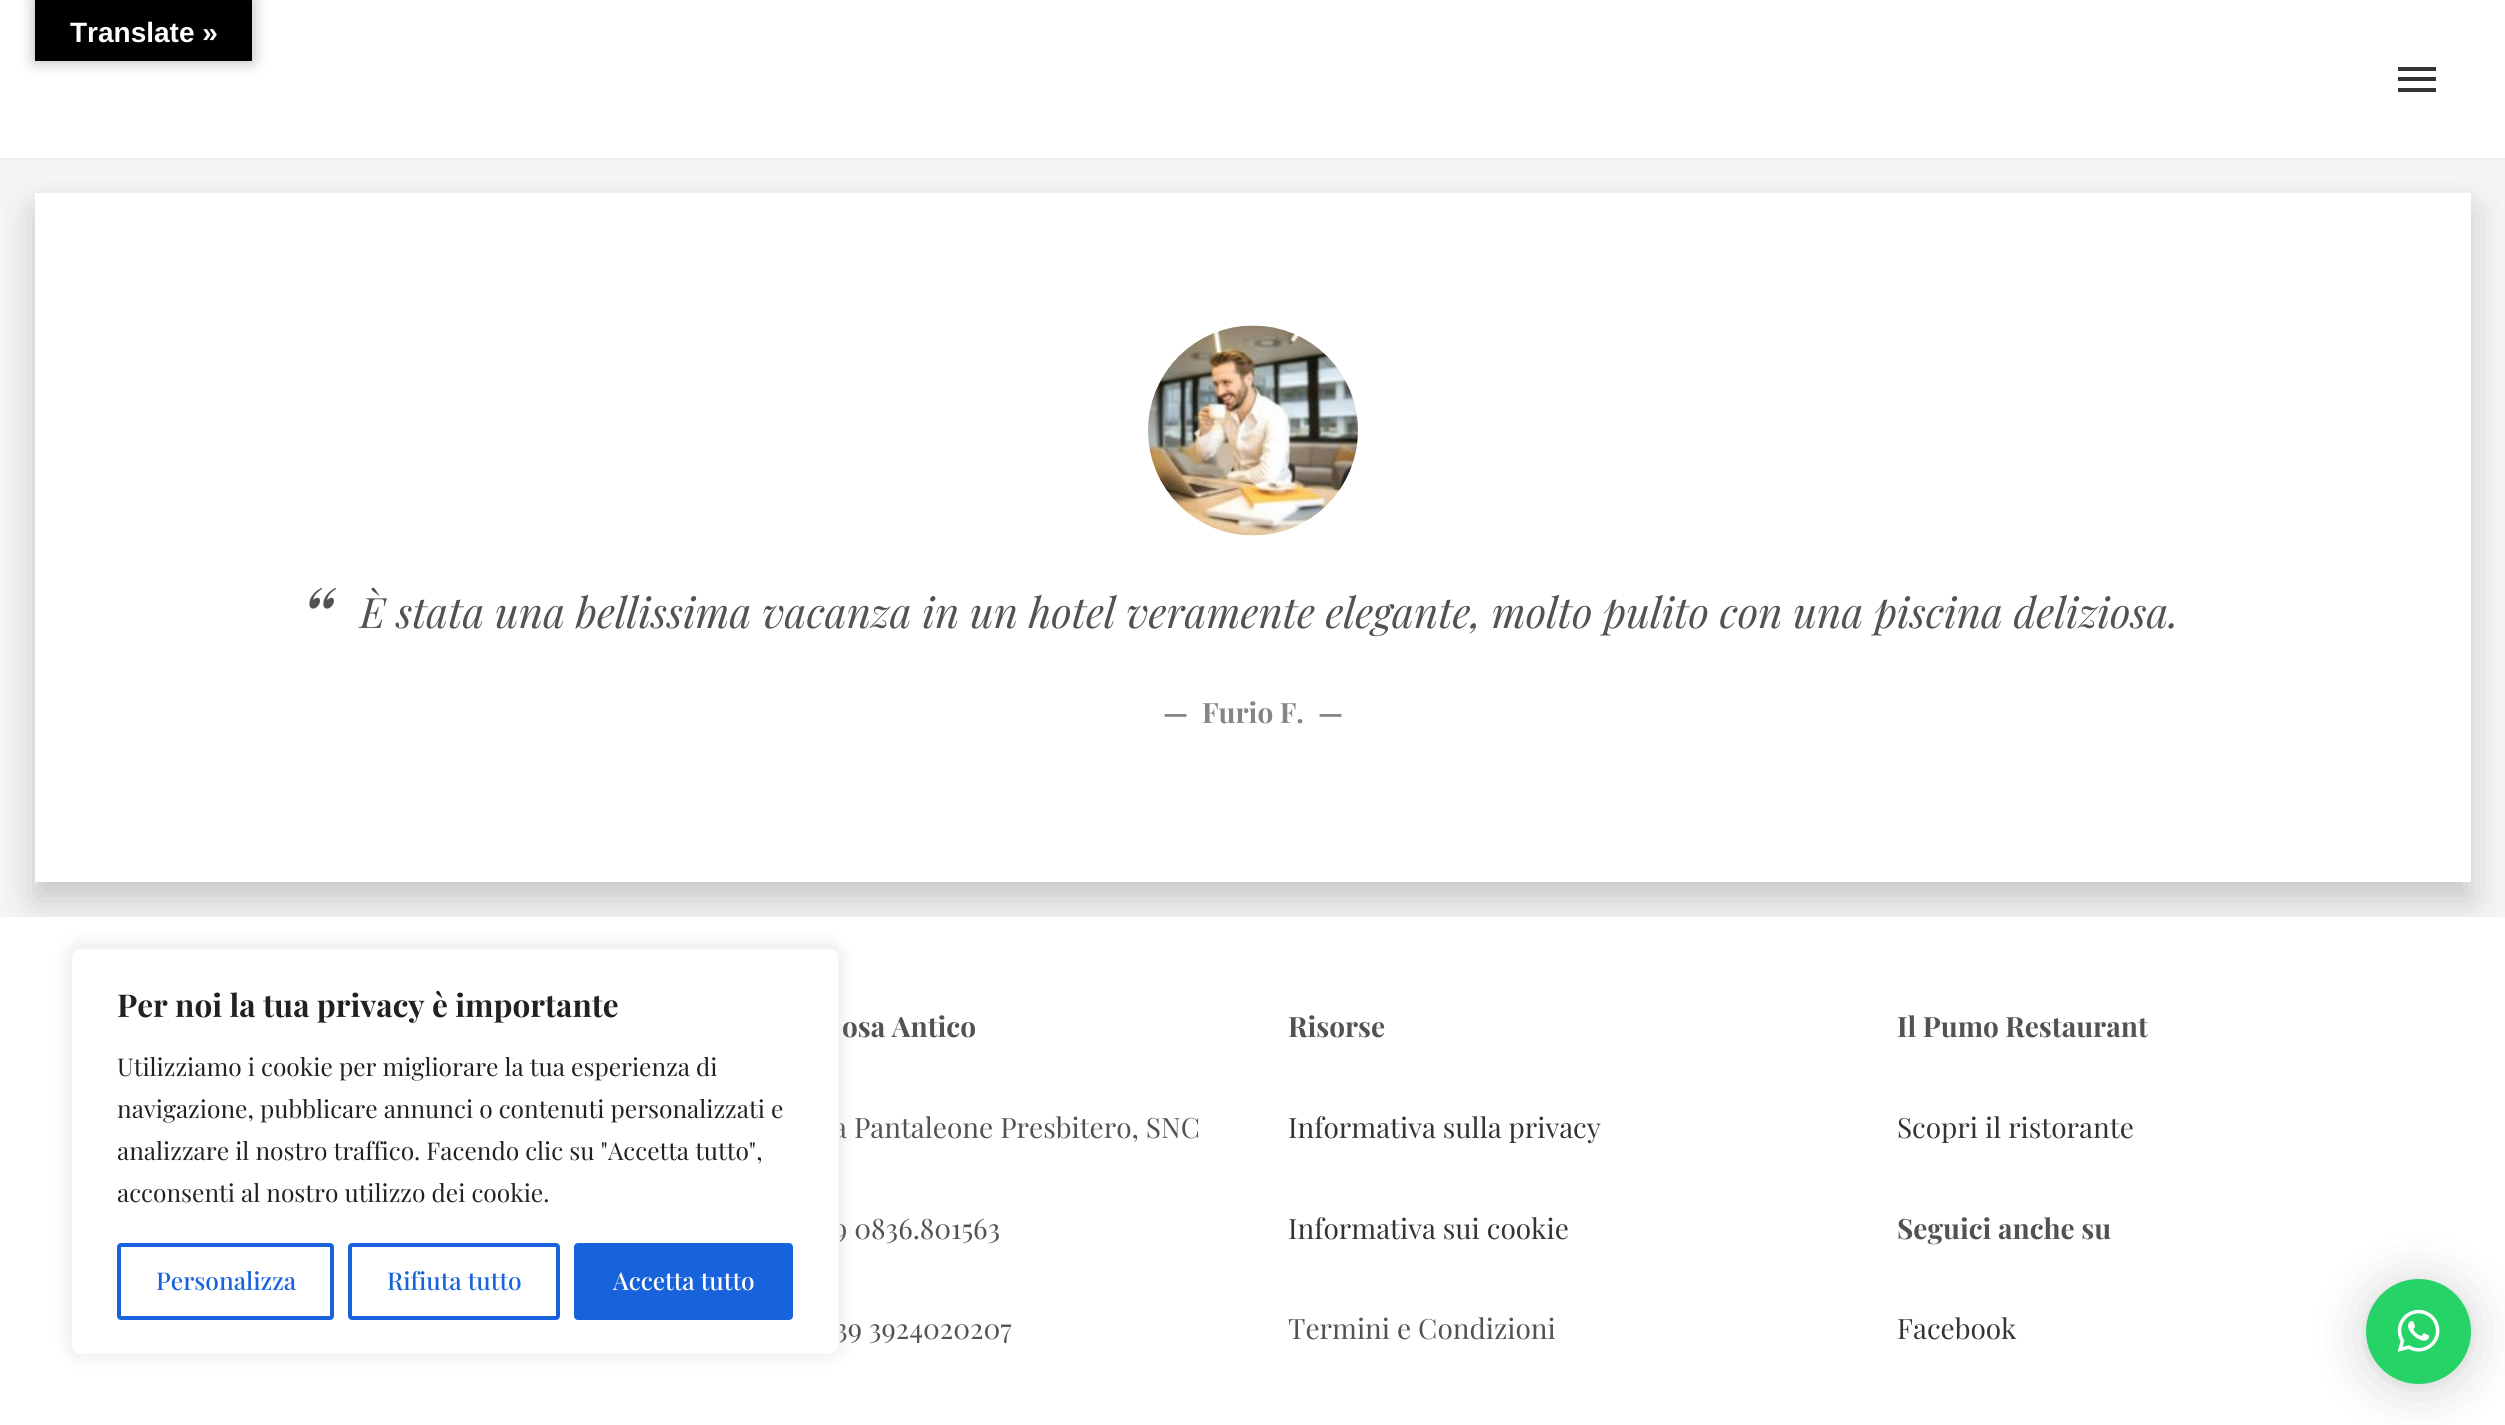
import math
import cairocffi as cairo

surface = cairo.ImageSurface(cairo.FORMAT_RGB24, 2505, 1425)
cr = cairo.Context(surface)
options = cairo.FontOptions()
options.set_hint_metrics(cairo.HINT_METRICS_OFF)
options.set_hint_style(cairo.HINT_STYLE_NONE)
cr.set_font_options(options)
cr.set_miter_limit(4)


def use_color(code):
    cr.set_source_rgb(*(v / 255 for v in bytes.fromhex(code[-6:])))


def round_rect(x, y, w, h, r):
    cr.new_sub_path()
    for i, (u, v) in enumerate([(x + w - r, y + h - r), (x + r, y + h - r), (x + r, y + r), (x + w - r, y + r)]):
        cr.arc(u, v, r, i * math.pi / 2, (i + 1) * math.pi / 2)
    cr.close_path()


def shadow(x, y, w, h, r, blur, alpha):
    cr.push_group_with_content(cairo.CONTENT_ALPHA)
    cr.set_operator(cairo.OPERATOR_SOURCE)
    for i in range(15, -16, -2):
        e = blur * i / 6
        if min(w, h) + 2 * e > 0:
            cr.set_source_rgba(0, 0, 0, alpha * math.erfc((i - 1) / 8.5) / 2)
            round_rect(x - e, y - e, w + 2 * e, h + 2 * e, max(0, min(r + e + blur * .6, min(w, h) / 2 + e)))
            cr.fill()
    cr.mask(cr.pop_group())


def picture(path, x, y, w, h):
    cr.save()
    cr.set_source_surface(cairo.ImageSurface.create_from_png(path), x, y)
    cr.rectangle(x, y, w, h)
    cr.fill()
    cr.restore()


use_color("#f5f5f5")
cr.paint()
use_color("#000000")
shadow(0, 0, 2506, 158, 0, 1, 0.15)
shadow(35, 210, 2436, 690, 0, 17.5, 0.1)
use_color("#ffffff")
cr.rectangle(35, 193, 2436, 689)
cr.fill()
cr.save()
cr.set_fill_rule(cairo.FILL_RULE_EVEN_ODD)
cr.new_path()
cr.move_to(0, 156)
cr.line_to(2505, 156)
cr.line_to(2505, 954)
cr.line_to(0, 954)
cr.close_path()
cr.move_to(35, 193)
cr.line_to(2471, 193)
cr.line_to(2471, 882)
cr.line_to(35, 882)
cr.close_path()
cr.clip()
use_color("#000000")
shadow(35, 210, 2436, 690, 0, 17.5, 0.1)
cr.restore()
cr.rectangle(0, 0, 2505, 158)
cr.fill()
use_color("#000000")
shadow(35, 0, 217, 61, 0, 8, 0.3)
use_color("#000000")
cr.rectangle(35, 0, 217, 61)
cr.fill()
cr.select_font_face("Liberation Sans", cairo.FONT_SLANT_NORMAL, cairo.FONT_WEIGHT_BOLD)
cr.set_font_size(28)
use_color("#ffffff")
cr.move_to(70, 42)
cr.show_text("Translate »")
use_color("#333333")
cr.rectangle(2398, 77, 38, 4)
cr.fill()
cr.rectangle(2398, 67, 38, 4)
cr.fill()
cr.rectangle(2398, 88, 38, 4)
cr.fill()
picture("img1.png", 1148, 325, 210, 211)
cr.select_font_face("Playfair Display", cairo.FONT_SLANT_ITALIC)
cr.set_font_size(84)
use_color("#525252")
cr.move_to(299, 649)
cr.show_text("“")
cr.set_font_size(42)
cr.move_to(360, 628)
cr.show_text("È stata una bellissima vacanza in un hotel veramente elegante, molto pulito con una piscina deliziosa.")
cr.select_font_face("Playfair Display", cairo.FONT_SLANT_NORMAL, cairo.FONT_WEIGHT_BOLD)
cr.set_font_size(28)
use_color("#858585")
cr.move_to(1163, 723)
cr.show_text("—")
cr.move_to(1202, 723)
cr.show_text("Furio F.")
cr.move_to(1318, 723)
cr.show_text("—")
use_color("#ffffff")
cr.rectangle(0, 917, 2505, 508)
cr.fill()
use_color("#525252")
cr.move_to(842, 1037)
cr.show_text("osa Antico")
cr.select_font_face("Playfair Display")
cr.move_to(833, 1138)
cr.show_text("a Pantaleone Presbitero, SNC")
cr.move_to(833, 1239)
cr.show_text("9 0836.801563")
cr.move_to(835, 1339)
cr.show_text("39 3924020207")
cr.select_font_face("Playfair Display", cairo.FONT_SLANT_NORMAL, cairo.FONT_WEIGHT_BOLD)
cr.move_to(1288, 1037)
cr.show_text("Risorse")
cr.select_font_face("Playfair Display")
use_color("#333333")
cr.move_to(1288, 1138)
cr.show_text("Informativa sulla privacy")
cr.move_to(1288, 1239)
cr.show_text("Informativa sui cookie")
use_color("#525252")
cr.move_to(1288, 1339)
cr.show_text("Termini e Condizioni")
cr.select_font_face("Playfair Display", cairo.FONT_SLANT_NORMAL, cairo.FONT_WEIGHT_BOLD)
cr.move_to(1897, 1037)
cr.show_text("Il Pumo Restaurant")
cr.select_font_face("Playfair Display")
use_color("#333333")
cr.move_to(1897, 1138)
cr.show_text("Scopri il ristorante")
cr.select_font_face("Playfair Display", cairo.FONT_SLANT_NORMAL, cairo.FONT_WEIGHT_BOLD)
use_color("#525252")
cr.move_to(1897, 1239)
cr.show_text("Seguici anche su")
cr.select_font_face("Playfair Display")
use_color("#333333")
cr.move_to(1897, 1339)
cr.show_text("Facebook")
use_color("#acabab")
shadow(70, 945, 770, 410, 11, 9, 0.3)
use_color("#ffffff")
round_rect(71, 948, 768, 407, 10)
cr.fill_preserve()
use_color("#f4f4f4")
cr.stroke()
cr.select_font_face("Playfair Display", cairo.FONT_SLANT_NORMAL, cairo.FONT_WEIGHT_BOLD)
cr.set_font_size(31.5)
use_color("#212121")
cr.move_to(117, 1017)
cr.show_text("Per noi la tua privacy è importante")
cr.select_font_face("Playfair Display")
cr.set_font_size(24.5)
cr.move_to(117, 1076)
cr.show_text("Utilizziamo i cookie per migliorare la tua esperienza di")
cr.move_to(117, 1118)
cr.show_text("navigazione, pubblicare annunci o contenuti personalizzati e")
cr.move_to(117, 1160)
cr.show_text("analizzare il nostro traffico. Facendo clic su \"Accetta tutto\",")
cr.move_to(117, 1202)
cr.show_text("acconsenti al nostro utilizzo dei cookie.")
round_rect(119, 1245, 213, 73, 2)
use_color("#1863dc")
cr.set_line_width(4)
cr.stroke()
cr.select_font_face("Playfair Display Medium")
cr.move_to(156, 1290)
cr.show_text("Personalizza")
round_rect(350, 1245, 208, 73, 2)
cr.stroke()
cr.move_to(387, 1290)
cr.show_text("Rifiuta tutto")
round_rect(576, 1245, 215, 73, 2)
cr.fill_preserve()
cr.stroke()
use_color("#ffffff")
cr.move_to(613, 1290)
cr.show_text("Accetta tutto")
use_color("#000000")
shadow(2366, 1283, 105, 105, 52.5, 28, 0.16)
shadow(2366, 1281, 105, 105, 52.5, 5, 0.06)
use_color("#25d366")
cr.arc(2418.5, 1331.5, 52.5, 0, 2 * math.pi)
cr.fill()
picture("img2.png", 2397, 1309, 43, 43)
surface.write_to_png("result.png")
